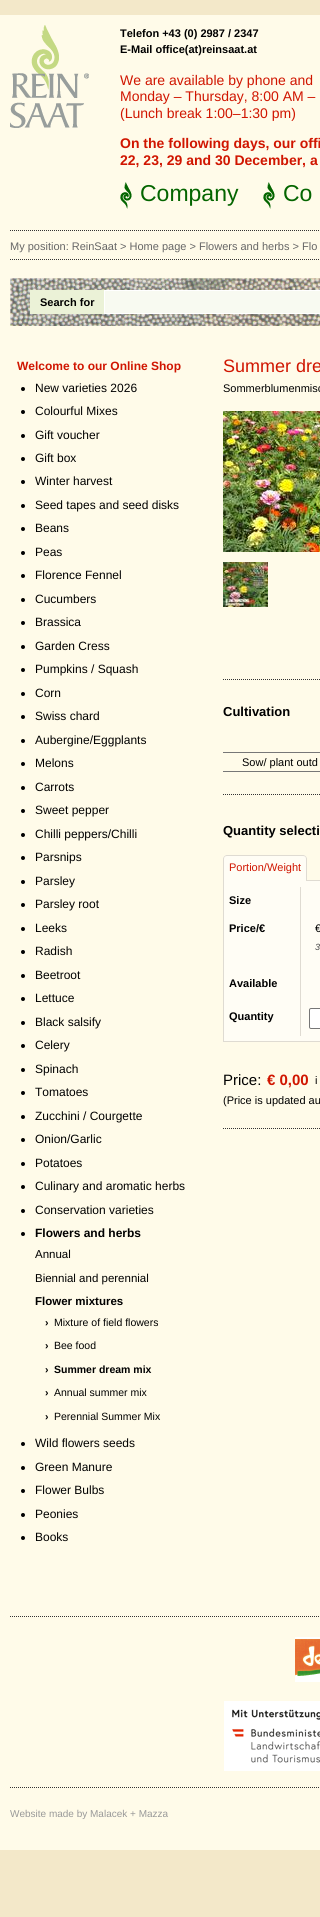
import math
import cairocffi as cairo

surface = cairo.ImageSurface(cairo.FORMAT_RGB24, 320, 1917)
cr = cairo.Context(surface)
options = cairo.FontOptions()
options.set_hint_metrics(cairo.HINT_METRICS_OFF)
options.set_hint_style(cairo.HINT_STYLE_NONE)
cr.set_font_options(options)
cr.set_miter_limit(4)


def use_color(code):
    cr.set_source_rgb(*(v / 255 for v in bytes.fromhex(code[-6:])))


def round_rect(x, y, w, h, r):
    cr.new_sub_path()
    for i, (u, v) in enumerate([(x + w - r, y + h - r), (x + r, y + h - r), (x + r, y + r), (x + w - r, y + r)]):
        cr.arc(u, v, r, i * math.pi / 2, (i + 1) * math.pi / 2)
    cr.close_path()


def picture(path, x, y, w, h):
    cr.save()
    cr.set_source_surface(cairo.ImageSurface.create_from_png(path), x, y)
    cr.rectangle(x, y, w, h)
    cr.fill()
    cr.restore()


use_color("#f3e8c9")
cr.paint()
use_color("#fffbe9")
cr.rectangle(0, 15, 320, 1835)
cr.fill()
picture("img1.png", 10, 25, 79, 103)
cr.select_font_face("Liberation Sans", cairo.FONT_SLANT_NORMAL, cairo.FONT_WEIGHT_BOLD)
cr.set_font_size(11)
use_color("#000000")
cr.move_to(120, 37)
cr.show_text("Telefon +43 (0) 2987 / 2347")
cr.move_to(120, 53)
cr.show_text("E-Mail office(at)reinsaat.at")
cr.select_font_face("Liberation Sans")
cr.set_font_size(14)
use_color("#d01500")
cr.move_to(120, 85)
cr.show_text("We are available by phone and")
cr.move_to(120, 101)
cr.show_text("Monday – Thursday, 8:00 AM –")
cr.move_to(120, 118)
cr.show_text("(Lunch break 1:00–1:30 pm)")
cr.select_font_face("Liberation Sans", cairo.FONT_SLANT_NORMAL, cairo.FONT_WEIGHT_BOLD)
cr.move_to(120, 148)
cr.show_text("On the following days, our offi")
cr.move_to(120, 165)
cr.show_text("22, 23, 29 and 30 December, a")
picture("img2.png", 120, 182, 12, 27)
cr.select_font_face("Liberation Sans")
cr.set_font_size(23)
use_color("#046500")
cr.move_to(140, 201)
cr.show_text("Company")
picture("img2.png", 263, 182, 12, 27)
cr.move_to(283, 201)
cr.show_text("Co")
cr.new_path()
cr.move_to(10, 230.5)
cr.line_to(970, 230.5)
use_color("#333333")
cr.set_line_width(1)
cr.set_dash([1, 1])
cr.stroke()
cr.new_path()
cr.move_to(10, 259.5)
cr.line_to(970, 259.5)
cr.stroke()
cr.set_font_size(11)
use_color("#666666")
cr.move_to(10, 250)
cr.show_text("My position: ReinSaat > Home page > Flowers and herbs > Flo")
picture("img3.png", 10, 278, 310, 48)
use_color("#ebf2d7")
cr.rectangle(30, 290, 74, 24)
cr.fill()
cr.select_font_face("Liberation Sans", cairo.FONT_SLANT_NORMAL, cairo.FONT_WEIGHT_BOLD)
use_color("#000000")
cr.move_to(40, 306)
cr.show_text("Search for")
use_color("#f8faf1")
cr.rectangle(104.5, 290.5, 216, 23)
cr.fill_preserve()
use_color("#ffffff")
cr.set_dash([])
cr.stroke()
cr.new_path()
cr.move_to(10, 1616.5)
cr.line_to(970, 1616.5)
use_color("#333333")
cr.set_dash([1, 1])
cr.stroke()
cr.set_font_size(12)
use_color("#d01500")
cr.move_to(17, 370)
cr.show_text("Welcome to our Online Shop")
use_color("#000000")
cr.new_path()
cr.arc(23, 389, 2, 0, 2 * math.pi)
cr.fill()
cr.select_font_face("Liberation Sans")
cr.move_to(35, 392)
cr.show_text("New varieties 2026")
cr.new_path()
cr.arc(23, 412, 2, 0, 2 * math.pi)
cr.fill()
cr.move_to(35, 415)
cr.show_text("Colourful Mixes")
cr.new_path()
cr.arc(23, 436, 2, 0, 2 * math.pi)
cr.fill()
cr.move_to(35, 439)
cr.show_text("Gift voucher")
cr.new_path()
cr.arc(23, 459, 2, 0, 2 * math.pi)
cr.fill()
cr.move_to(35, 462)
cr.show_text("Gift box")
cr.new_path()
cr.arc(23, 482, 2, 0, 2 * math.pi)
cr.fill()
cr.move_to(35, 485)
cr.show_text("Winter harvest")
cr.new_path()
cr.arc(23, 506, 2, 0, 2 * math.pi)
cr.fill()
cr.move_to(35, 509)
cr.show_text("Seed tapes and seed disks")
cr.new_path()
cr.arc(23, 529, 2, 0, 2 * math.pi)
cr.fill()
cr.move_to(35, 532)
cr.show_text("Beans")
cr.new_path()
cr.arc(23, 553, 2, 0, 2 * math.pi)
cr.fill()
cr.move_to(35, 556)
cr.show_text("Peas")
cr.new_path()
cr.arc(23, 576, 2, 0, 2 * math.pi)
cr.fill()
cr.move_to(35, 579)
cr.show_text("Florence Fennel")
cr.new_path()
cr.arc(23, 600, 2, 0, 2 * math.pi)
cr.fill()
cr.move_to(35, 603)
cr.show_text("Cucumbers")
cr.new_path()
cr.arc(23, 623, 2, 0, 2 * math.pi)
cr.fill()
cr.move_to(35, 626)
cr.show_text("Brassica")
cr.new_path()
cr.arc(23, 647, 2, 0, 2 * math.pi)
cr.fill()
cr.move_to(35, 650)
cr.show_text("Garden Cress")
cr.new_path()
cr.arc(23, 670, 2, 0, 2 * math.pi)
cr.fill()
cr.move_to(35, 673)
cr.show_text("Pumpkins / Squash")
cr.new_path()
cr.arc(23, 694, 2, 0, 2 * math.pi)
cr.fill()
cr.move_to(35, 697)
cr.show_text("Corn")
cr.new_path()
cr.arc(23, 717, 2, 0, 2 * math.pi)
cr.fill()
cr.move_to(35, 720)
cr.show_text("Swiss chard")
cr.new_path()
cr.arc(23, 741, 2, 0, 2 * math.pi)
cr.fill()
cr.move_to(35, 744)
cr.show_text("Aubergine/Eggplants")
cr.new_path()
cr.arc(23, 764, 2, 0, 2 * math.pi)
cr.fill()
cr.move_to(35, 767)
cr.show_text("Melons")
cr.new_path()
cr.arc(23, 788, 2, 0, 2 * math.pi)
cr.fill()
cr.move_to(35, 791)
cr.show_text("Carrots")
cr.new_path()
cr.arc(23, 811, 2, 0, 2 * math.pi)
cr.fill()
cr.move_to(35, 814)
cr.show_text("Sweet pepper")
cr.new_path()
cr.arc(23, 835, 2, 0, 2 * math.pi)
cr.fill()
cr.move_to(35, 838)
cr.show_text("Chilli peppers/Chilli")
cr.new_path()
cr.arc(23, 858, 2, 0, 2 * math.pi)
cr.fill()
cr.move_to(35, 861)
cr.show_text("Parsnips")
cr.new_path()
cr.arc(23, 882, 2, 0, 2 * math.pi)
cr.fill()
cr.move_to(35, 885)
cr.show_text("Parsley")
cr.new_path()
cr.arc(23, 905, 2, 0, 2 * math.pi)
cr.fill()
cr.move_to(35, 908)
cr.show_text("Parsley root")
cr.new_path()
cr.arc(23, 929, 2, 0, 2 * math.pi)
cr.fill()
cr.move_to(35, 932)
cr.show_text("Leeks")
cr.new_path()
cr.arc(23, 952, 2, 0, 2 * math.pi)
cr.fill()
cr.move_to(35, 955)
cr.show_text("Radish")
cr.new_path()
cr.arc(23, 976, 2, 0, 2 * math.pi)
cr.fill()
cr.move_to(35, 979)
cr.show_text("Beetroot")
cr.new_path()
cr.arc(23, 999, 2, 0, 2 * math.pi)
cr.fill()
cr.move_to(35, 1002)
cr.show_text("Lettuce")
cr.new_path()
cr.arc(23, 1023, 2, 0, 2 * math.pi)
cr.fill()
cr.move_to(35, 1026)
cr.show_text("Black salsify")
cr.new_path()
cr.arc(23, 1046, 2, 0, 2 * math.pi)
cr.fill()
cr.move_to(35, 1049)
cr.show_text("Celery")
cr.new_path()
cr.arc(23, 1070, 2, 0, 2 * math.pi)
cr.fill()
cr.move_to(35, 1073)
cr.show_text("Spinach")
cr.new_path()
cr.arc(23, 1093, 2, 0, 2 * math.pi)
cr.fill()
cr.move_to(35, 1096)
cr.show_text("Tomatoes")
cr.new_path()
cr.arc(23, 1117, 2, 0, 2 * math.pi)
cr.fill()
cr.move_to(35, 1120)
cr.show_text("Zucchini / Courgette")
cr.new_path()
cr.arc(23, 1140, 2, 0, 2 * math.pi)
cr.fill()
cr.move_to(35, 1143)
cr.show_text("Onion/Garlic")
cr.new_path()
cr.arc(23, 1164, 2, 0, 2 * math.pi)
cr.fill()
cr.move_to(35, 1167)
cr.show_text("Potatoes")
cr.new_path()
cr.arc(23, 1187, 2, 0, 2 * math.pi)
cr.fill()
cr.move_to(35, 1190)
cr.show_text("Culinary and aromatic herbs")
cr.new_path()
cr.arc(23, 1211, 2, 0, 2 * math.pi)
cr.fill()
cr.move_to(35, 1214)
cr.show_text("Conservation varieties")
cr.new_path()
cr.arc(23, 1234, 2, 0, 2 * math.pi)
cr.fill()
cr.select_font_face("Liberation Sans", cairo.FONT_SLANT_NORMAL, cairo.FONT_WEIGHT_BOLD)
cr.move_to(35, 1237)
cr.show_text("Flowers and herbs")
cr.select_font_face("Liberation Sans")
cr.set_font_size(11.5)
cr.move_to(35, 1258)
cr.show_text("Annual")
cr.move_to(35, 1282)
cr.show_text("Biennial and perennial")
cr.select_font_face("Liberation Sans", cairo.FONT_SLANT_NORMAL, cairo.FONT_WEIGHT_BOLD)
cr.move_to(35, 1305)
cr.show_text("Flower mixtures")
cr.set_font_size(10.5)
cr.move_to(45, 1326)
cr.show_text("›")
cr.select_font_face("Liberation Sans")
cr.move_to(54, 1326)
cr.show_text("Mixture of field flowers")
cr.select_font_face("Liberation Sans", cairo.FONT_SLANT_NORMAL, cairo.FONT_WEIGHT_BOLD)
cr.move_to(45, 1349)
cr.show_text("›")
cr.select_font_face("Liberation Sans")
cr.move_to(54, 1349)
cr.show_text("Bee food")
cr.select_font_face("Liberation Sans", cairo.FONT_SLANT_NORMAL, cairo.FONT_WEIGHT_BOLD)
cr.move_to(45, 1373)
cr.show_text("›")
cr.move_to(54, 1373)
cr.show_text("Summer dream mix")
cr.move_to(45, 1396)
cr.show_text("›")
cr.select_font_face("Liberation Sans")
cr.move_to(54, 1396)
cr.show_text("Annual summer mix")
cr.select_font_face("Liberation Sans", cairo.FONT_SLANT_NORMAL, cairo.FONT_WEIGHT_BOLD)
cr.move_to(45, 1420)
cr.show_text("›")
cr.select_font_face("Liberation Sans")
cr.move_to(54, 1420)
cr.show_text("Perennial Summer Mix")
cr.new_path()
cr.arc(23, 1444, 2, 0, 2 * math.pi)
cr.fill()
cr.set_font_size(12)
cr.move_to(35, 1447)
cr.show_text("Wild flowers seeds")
cr.new_path()
cr.arc(23, 1468, 2, 0, 2 * math.pi)
cr.fill()
cr.move_to(35, 1471)
cr.show_text("Green Manure")
cr.new_path()
cr.arc(23, 1491, 2, 0, 2 * math.pi)
cr.fill()
cr.move_to(35, 1494)
cr.show_text("Flower Bulbs")
cr.new_path()
cr.arc(23, 1515, 2, 0, 2 * math.pi)
cr.fill()
cr.move_to(35, 1518)
cr.show_text("Peonies")
cr.new_path()
cr.arc(23, 1538, 2, 0, 2 * math.pi)
cr.fill()
cr.move_to(35, 1541)
cr.show_text("Books")
cr.set_font_size(18)
use_color("#d01500")
cr.move_to(223, 372)
cr.show_text("Summer dre")
cr.set_font_size(11)
use_color("#000000")
cr.move_to(223, 392)
cr.show_text("Sommerblumenmisc")
cr.new_path()
cr.move_to(223, 679.5)
cr.line_to(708, 679.5)
use_color("#333333")
cr.stroke()
picture("img4.png", 223, 411, 97, 141)
picture("img5.png", 223, 562, 45, 45)
cr.new_path()
cr.move_to(223, 794.5)
cr.line_to(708, 794.5)
cr.stroke()
cr.select_font_face("Liberation Sans", cairo.FONT_SLANT_NORMAL, cairo.FONT_WEIGHT_BOLD)
cr.set_font_size(13)
use_color("#000000")
cr.move_to(223, 716)
cr.show_text("Cultivation")
use_color("#777777")
cr.rectangle(223, 771, 97, 1)
cr.fill()
cr.rectangle(223, 752, 97, 1)
cr.fill()
cr.select_font_face("Liberation Sans")
cr.set_font_size(11)
use_color("#000000")
cr.move_to(242, 766)
cr.show_text("Sow/ plant outd")
cr.select_font_face("Liberation Sans", cairo.FONT_SLANT_NORMAL, cairo.FONT_WEIGHT_BOLD)
cr.set_font_size(13)
cr.move_to(223, 835)
cr.show_text("Quantity selecti")
use_color("#fffdf5")
cr.rectangle(223.5, 880.5, 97, 161)
cr.fill_preserve()
use_color("#dfdbd2")
cr.set_dash([])
cr.stroke()
use_color("#fffdf5")
cr.new_path()
cr.move_to(227, 855)
cr.line_to(303, 855)
cr.curve_to(305, 855, 307, 857, 307, 859)
cr.line_to(307, 881)
cr.line_to(223, 881)
cr.line_to(223, 859)
cr.curve_to(223, 857, 225, 855, 227, 855)
cr.close_path()
cr.fill()
use_color("#dfdbd2")
cr.set_fill_rule(cairo.FILL_RULE_EVEN_ODD)
cr.new_path()
cr.move_to(227, 855)
cr.line_to(303, 855)
cr.curve_to(305, 855, 307, 857, 307, 859)
cr.line_to(307, 881)
cr.line_to(223, 881)
cr.line_to(223, 859)
cr.curve_to(223, 857, 225, 855, 227, 855)
cr.close_path()
cr.move_to(227, 856)
cr.line_to(303, 856)
cr.curve_to(305, 856, 306, 857, 306, 859)
cr.line_to(306, 881)
cr.line_to(224, 881)
cr.line_to(224, 859)
cr.curve_to(224, 857, 225, 856, 227, 856)
cr.close_path()
cr.fill()
cr.select_font_face("Liberation Sans")
cr.set_font_size(11)
use_color("#d01500")
cr.move_to(229, 871)
cr.show_text("Portion/Weight")
use_color("#dfdbd2")
cr.rectangle(300, 887, 1, 149)
cr.fill()
cr.select_font_face("Liberation Sans", cairo.FONT_SLANT_NORMAL, cairo.FONT_WEIGHT_BOLD)
use_color("#000000")
cr.move_to(229, 904)
cr.show_text("Size")
cr.move_to(229, 932)
cr.show_text("Price/€")
cr.select_font_face("Liberation Sans")
cr.move_to(315, 932)
cr.show_text("€")
cr.select_font_face("Liberation Sans", cairo.FONT_SLANT_ITALIC)
cr.set_font_size(9)
use_color("#444444")
cr.move_to(315, 950)
cr.show_text("3")
cr.select_font_face("Liberation Sans", cairo.FONT_SLANT_NORMAL, cairo.FONT_WEIGHT_BOLD)
cr.set_font_size(11)
use_color("#000000")
cr.move_to(229, 987)
cr.show_text("Available")
cr.move_to(229, 1020)
cr.show_text("Quantity")
use_color("#ffffff")
round_rect(309.5, 1008.5, 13, 20, 1.5)
cr.fill_preserve()
use_color("#767676")
cr.stroke()
cr.new_path()
cr.move_to(223, 1128.5)
cr.line_to(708, 1128.5)
use_color("#333333")
cr.set_dash([1, 1])
cr.stroke()
cr.select_font_face("Liberation Sans")
cr.set_font_size(15)
use_color("#000000")
cr.move_to(223, 1085)
cr.show_text("Price:")
cr.select_font_face("Liberation Sans", cairo.FONT_SLANT_NORMAL, cairo.FONT_WEIGHT_BOLD)
use_color("#d01500")
cr.move_to(267, 1085)
cr.show_text("€ 0,00")
cr.select_font_face("Liberation Sans")
cr.set_font_size(11)
use_color("#000000")
cr.move_to(315, 1084)
cr.show_text("i")
cr.move_to(223, 1104)
cr.show_text("(Price is updated au")
cr.new_path()
cr.move_to(10, 1787.5)
cr.line_to(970, 1787.5)
use_color("#333333")
cr.stroke()
picture("img6.png", 295, 1637, 25, 45)
picture("img7.png", 224, 1701, 96, 70)
cr.set_font_size(10)
use_color("#999999")
cr.move_to(10, 1817)
cr.show_text("Website made by Malacek + Mazza")
surface.write_to_png("result.png")
